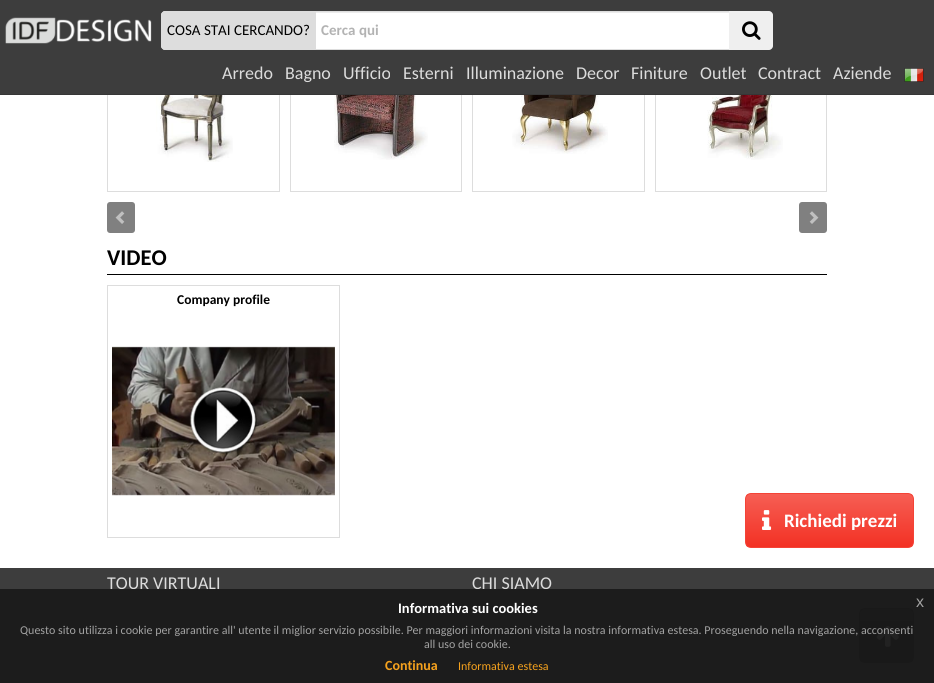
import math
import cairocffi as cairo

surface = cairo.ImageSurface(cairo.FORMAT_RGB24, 934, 683)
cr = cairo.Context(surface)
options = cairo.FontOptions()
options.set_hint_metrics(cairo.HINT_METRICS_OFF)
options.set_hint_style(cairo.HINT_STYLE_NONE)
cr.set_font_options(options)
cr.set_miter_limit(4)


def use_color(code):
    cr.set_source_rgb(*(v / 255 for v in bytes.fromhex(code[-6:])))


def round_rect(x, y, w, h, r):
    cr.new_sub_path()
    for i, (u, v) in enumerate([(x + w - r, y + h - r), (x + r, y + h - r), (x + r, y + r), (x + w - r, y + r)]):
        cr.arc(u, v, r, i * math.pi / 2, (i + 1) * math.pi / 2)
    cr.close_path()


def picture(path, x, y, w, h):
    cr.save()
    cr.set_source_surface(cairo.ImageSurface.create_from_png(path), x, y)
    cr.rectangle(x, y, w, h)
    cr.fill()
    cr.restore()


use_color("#ffffff")
cr.paint()
cr.rectangle(107.5, -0.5, 172, 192)
use_color("#dddddd")
cr.set_line_width(1)
cr.stroke()
cr.rectangle(290.5, -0.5, 171, 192)
cr.stroke()
cr.rectangle(472.5, -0.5, 172, 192)
cr.stroke()
cr.rectangle(655.5, -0.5, 171, 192)
cr.stroke()
use_color("#3d3d3d")
cr.rectangle(0, 0, 934, 94)
cr.fill()
use_color("#363636")
cr.rectangle(0, 94, 934, 1)
cr.fill()
picture("img1.png", 5, 17, 147, 27)
use_color("#dddddd")
cr.new_path()
cr.move_to(165, 11)
cr.line_to(315, 11)
cr.line_to(315, 50)
cr.line_to(165, 50)
cr.curve_to(163, 50, 161, 48, 161, 46)
cr.line_to(161, 15)
cr.curve_to(161, 13, 163, 11, 165, 11)
cr.close_path()
cr.fill()
cr.set_fill_rule(cairo.FILL_RULE_EVEN_ODD)
cr.new_path()
cr.move_to(165, 11)
cr.line_to(315, 11)
cr.line_to(315, 50)
cr.line_to(165, 50)
cr.curve_to(163, 50, 161, 48, 161, 46)
cr.line_to(161, 15)
cr.curve_to(161, 13, 163, 11, 165, 11)
cr.close_path()
cr.move_to(165, 12)
cr.line_to(315, 12)
cr.line_to(315, 49)
cr.line_to(165, 49)
cr.curve_to(163, 49, 162, 48, 162, 46)
cr.line_to(162, 15)
cr.curve_to(162, 13, 163, 12, 165, 12)
cr.close_path()
cr.fill()
cr.select_font_face("Carlito")
cr.set_font_size(15)
use_color("#000000")
cr.move_to(167, 35)
cr.show_text("COSA STAI CERCANDO?")
use_color("#ffffff")
cr.rectangle(316, 13, 413, 36)
cr.fill()
use_color("#ececec")
cr.rectangle(316, 12, 413, 1)
cr.fill()
cr.rectangle(315.5, 11.5, 414, 38)
use_color("#dddddd")
cr.stroke()
cr.select_font_face("Carlito", cairo.FONT_SLANT_NORMAL, cairo.FONT_WEIGHT_BOLD)
use_color("#b3b3b3")
cr.move_to(321, 35)
cr.show_text("Cerca qui")
use_color("#efefef")
cr.new_path()
cr.move_to(729, 11)
cr.line_to(769, 11)
cr.curve_to(771, 11, 773, 13, 773, 15)
cr.line_to(773, 46)
cr.curve_to(773, 48, 771, 50, 769, 50)
cr.line_to(729, 50)
cr.close_path()
cr.fill()
picture("img2.png", 742, 21, 19, 19)
cr.select_font_face("Carlito")
cr.set_font_size(18)
use_color("#dcdcdc")
cr.move_to(222, 79)
cr.show_text("Arredo")
cr.move_to(285, 79)
cr.show_text("Bagno")
cr.move_to(343, 79)
cr.show_text("Ufficio")
cr.move_to(403, 79)
cr.show_text("Esterni")
cr.move_to(466, 79)
cr.show_text("Illuminazione")
cr.move_to(576, 79)
cr.show_text("Decor")
cr.move_to(631, 79)
cr.show_text("Finiture")
cr.move_to(700, 79)
cr.show_text("Outlet")
cr.move_to(758, 79)
cr.show_text("Contract")
cr.move_to(833, 79)
cr.show_text("Aziende")
picture("img3.png", 904, 68, 20, 14)
picture("img4.png", 156, 95, 77, 67)
picture("img5.png", 334, 95, 94, 65)
picture("img6.png", 512, 95, 96, 59)
picture("img7.png", 707, 95, 76, 65)
use_color("#808080")
round_rect(107, 202, 28, 31, 3)
cr.fill()
picture("img8.png", 115, 211, 10, 13)
round_rect(799, 202, 28, 31, 3)
cr.fill()
picture("img9.png", 809, 211, 10, 13)
cr.select_font_face("Carlito", cairo.FONT_SLANT_NORMAL, cairo.FONT_WEIGHT_BOLD)
cr.set_font_size(22.5)
use_color("#000000")
cr.move_to(107, 265)
cr.show_text("VIDEO")
cr.rectangle(107, 274, 720, 1)
cr.fill()
cr.rectangle(107.5, 285.5, 232, 252)
use_color("#dddddd")
cr.stroke()
cr.set_font_size(13.5)
use_color("#000000")
cr.move_to(177, 304)
cr.show_text("Company profile")
picture("img10.png", 112, 346, 223, 150)
cr.save()
cr.set_fill_rule(cairo.FILL_RULE_WINDING)
round_rect(745, 493, 169, 55, 6)
cr.clip()
gradient = cairo.LinearGradient(830, 494, 830, 547)
gradient.add_color_stop_rgba(0, 0.965, 0.369, 0.329, 1)
gradient.add_color_stop_rgba(0.6, 0.957, 0.263, 0.216, 1)
gradient.add_color_stop_rgba(1, 0.953, 0.192, 0.141, 1)
cr.set_source(gradient)
cr.rectangle(746, 494, 167, 53)
cr.fill()
cr.restore()
round_rect(745.5, 493.5, 168, 54, 5.5)
use_color("#f44337")
cr.stroke()
picture("img11.png", 762, 510, 10, 20)
cr.set_font_size(19)
use_color("#ffffff")
cr.move_to(784, 527)
cr.show_text("Richiedi prezzi")
use_color("#3d3d3d")
cr.rectangle(0, 568, 934, 115)
cr.fill()
cr.select_font_face("Carlito")
cr.set_font_size(18)
use_color("#dcdcdc")
cr.move_to(107, 589)
cr.show_text("TOUR VIRTUALI")
cr.move_to(472, 589)
cr.show_text("CHI SIAMO")
cr.save()
cr.set_fill_rule(cairo.FILL_RULE_WINDING)
round_rect(859, 608, 55, 55, 6)
cr.clip()
gradient = cairo.LinearGradient(887, 609, 887, 662)
gradient.add_color_stop_rgba(0, 0.149, 0.149, 0.149, 1)
gradient.add_color_stop_rgba(0.6, 0.122, 0.122, 0.122, 1)
gradient.add_color_stop_rgba(1, 0.122, 0.122, 0.122, 1)
cr.set_source(gradient)
cr.rectangle(860, 609, 53, 53)
cr.fill()
cr.restore()
round_rect(859.5, 608.5, 54, 54, 5.5)
use_color("#1f1f1f")
cr.stroke()
picture("img12.png", 876, 626, 23, 21)
cr.set_source_rgba(0.098, 0.098, 0.098, 0.9)
cr.rectangle(0, 589, 934, 94)
cr.fill()
cr.select_font_face("Carlito", cairo.FONT_SLANT_NORMAL, cairo.FONT_WEIGHT_BOLD)
cr.set_font_size(14.5)
use_color("#ffffff")
cr.move_to(398, 613)
cr.show_text("Informativa sui cookies")
cr.select_font_face("Liberation Sans")
cr.set_font_size(16)
use_color("#a2a2a2")
cr.move_to(916, 607)
cr.show_text("x")
cr.select_font_face("Carlito")
cr.set_font_size(12)
cr.move_to(20, 634)
cr.show_text("Questo sito utilizza i cookie per garantire all' utente il miglior servizio possibile. Per maggiori informazioni visita la nostra informativa estesa. Proseguendo nella navigazione, acconsenti")
cr.move_to(424, 648)
cr.show_text("all uso dei cookie.")
cr.select_font_face("Carlito", cairo.FONT_SLANT_NORMAL, cairo.FONT_WEIGHT_BOLD)
cr.set_font_size(14)
use_color("#f6a21d")
cr.move_to(385, 670)
cr.show_text("Continua")
cr.select_font_face("Carlito")
cr.set_font_size(12)
cr.move_to(458, 670)
cr.show_text("Informativa estesa")
surface.write_to_png("result.png")
